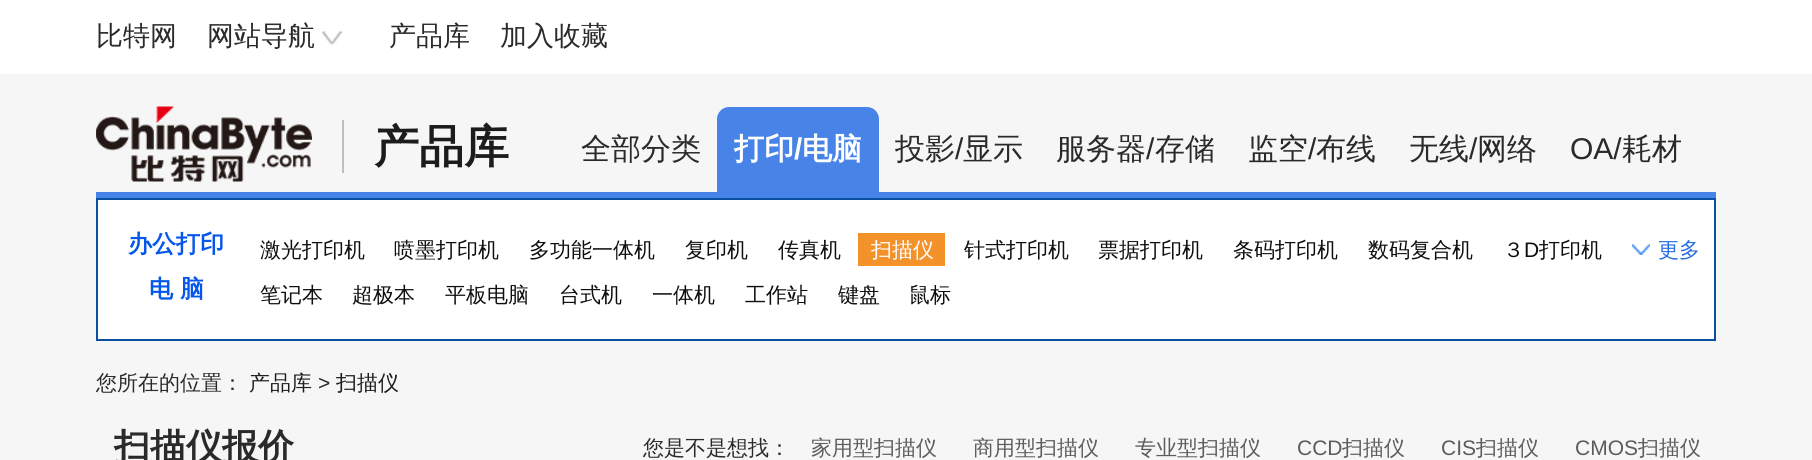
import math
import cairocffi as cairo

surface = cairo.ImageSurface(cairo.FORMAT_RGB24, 1812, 460)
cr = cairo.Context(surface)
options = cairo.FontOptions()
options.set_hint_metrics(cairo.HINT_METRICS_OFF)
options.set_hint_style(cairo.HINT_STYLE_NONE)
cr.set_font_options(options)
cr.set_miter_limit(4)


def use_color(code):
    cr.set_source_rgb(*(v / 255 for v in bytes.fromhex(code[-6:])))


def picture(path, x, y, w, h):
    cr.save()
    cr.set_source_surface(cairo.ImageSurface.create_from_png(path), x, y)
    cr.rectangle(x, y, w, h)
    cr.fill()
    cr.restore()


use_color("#f6f6f6")
cr.paint()
use_color("#ffffff")
cr.rectangle(0, 0, 1812, 74)
cr.fill()
cr.select_font_face("WenQuanYi Zen Hei Medium")
cr.set_font_size(27)
use_color("#2a2a2a")
cr.move_to(96, 45)
cr.show_text("比特网")
cr.move_to(207, 45)
cr.show_text("网站导航")
picture("img1.png", 322, 31, 21, 14)
cr.move_to(389, 45)
cr.show_text("产品库")
cr.move_to(500, 45)
cr.show_text("加入收藏")
use_color("#4884e8")
cr.rectangle(96, 192, 1620, 6)
cr.fill()
picture("img2.png", 96, 106, 216, 76)
use_color("#bfbfbf")
cr.rectangle(342, 120, 2, 53)
cr.fill()
cr.select_font_face("WenQuanYi Zen Hei", cairo.FONT_SLANT_NORMAL, cairo.FONT_WEIGHT_BOLD)
cr.set_font_size(45)
use_color("#1c1c1c")
cr.move_to(374, 162)
cr.show_text("产品库")
cr.select_font_face("WenQuanYi Zen Hei Medium")
cr.set_font_size(30)
use_color("#2a2a2a")
cr.move_to(581, 159)
cr.show_text("全部分类")
use_color("#4884e8")
cr.new_path()
cr.move_to(729, 107)
cr.line_to(867, 107)
cr.curve_to(873.5, 107, 879, 112.5, 879, 119)
cr.line_to(879, 192)
cr.line_to(717, 192)
cr.line_to(717, 119)
cr.curve_to(717, 112.5, 722.5, 107, 729, 107)
cr.close_path()
cr.fill()
cr.select_font_face("WenQuanYi Zen Hei", cairo.FONT_SLANT_NORMAL, cairo.FONT_WEIGHT_BOLD)
use_color("#ffffff")
cr.move_to(734, 159)
cr.show_text("打印")
cr.select_font_face("Liberation Sans", cairo.FONT_SLANT_NORMAL, cairo.FONT_WEIGHT_BOLD)
cr.move_to(794, 159)
cr.show_text("/")
cr.select_font_face("WenQuanYi Zen Hei", cairo.FONT_SLANT_NORMAL, cairo.FONT_WEIGHT_BOLD)
cr.move_to(802, 159)
cr.show_text("电脑")
cr.select_font_face("WenQuanYi Zen Hei Medium")
use_color("#2a2a2a")
cr.move_to(895, 159)
cr.show_text("投影")
cr.select_font_face("Liberation Sans")
cr.move_to(955, 159)
cr.show_text("/")
cr.select_font_face("WenQuanYi Zen Hei Medium")
cr.move_to(963, 159)
cr.show_text("显示")
cr.move_to(1056, 159)
cr.show_text("服务器")
cr.select_font_face("Liberation Sans")
cr.move_to(1146, 159)
cr.show_text("/")
cr.select_font_face("WenQuanYi Zen Hei Medium")
cr.move_to(1155, 159)
cr.show_text("存储")
cr.move_to(1248, 159)
cr.show_text("监空")
cr.select_font_face("Liberation Sans")
cr.move_to(1308, 159)
cr.show_text("/")
cr.select_font_face("WenQuanYi Zen Hei Medium")
cr.move_to(1316, 159)
cr.show_text("布线")
cr.move_to(1409, 159)
cr.show_text("无线")
cr.select_font_face("Liberation Sans")
cr.move_to(1469, 159)
cr.show_text("/")
cr.select_font_face("WenQuanYi Zen Hei Medium")
cr.move_to(1477, 159)
cr.show_text("网络")
cr.select_font_face("Liberation Sans")
cr.move_to(1570, 159)
cr.show_text("OA/")
cr.select_font_face("WenQuanYi Zen Hei Medium")
cr.move_to(1622, 159)
cr.show_text("耗材")
use_color("#ffffff")
cr.rectangle(97, 199, 1618, 141)
cr.fill_preserve()
use_color("#0a50a1")
cr.stroke()
cr.select_font_face("WenQuanYi Zen Hei", cairo.FONT_SLANT_NORMAL, cairo.FONT_WEIGHT_BOLD)
cr.set_font_size(24)
use_color("#0556ea")
cr.move_to(128, 252)
cr.show_text("办公打印")
cr.select_font_face("WenQuanYi Zen Hei Medium")
cr.set_font_size(21)
use_color("#0e0e0e")
cr.move_to(260, 257)
cr.show_text("激光打印机")
cr.move_to(394, 257)
cr.show_text("喷墨打印机")
cr.move_to(529, 257)
cr.show_text("多功能一体机")
cr.move_to(685, 257)
cr.show_text("复印机")
cr.move_to(778, 257)
cr.show_text("传真机")
use_color("#f3922b")
cr.rectangle(858, 233, 87, 33)
cr.fill()
use_color("#ffffff")
cr.move_to(871, 257)
cr.show_text("扫描仪")
use_color("#0e0e0e")
cr.move_to(964, 257)
cr.show_text("针式打印机")
cr.move_to(1098, 257)
cr.show_text("票据打印机")
cr.move_to(1233, 257)
cr.show_text("条码打印机")
cr.move_to(1368, 257)
cr.show_text("数码复合机")
cr.move_to(1503, 257)
cr.show_text("３")
cr.select_font_face("Liberation Sans")
cr.move_to(1524, 257)
cr.show_text("D")
cr.select_font_face("WenQuanYi Zen Hei Medium")
cr.move_to(1539, 257)
cr.show_text("打印机")
picture("img3.png", 1632, 244, 18, 11)
use_color("#276de1")
cr.move_to(1658, 257)
cr.show_text("更多")
cr.select_font_face("WenQuanYi Zen Hei", cairo.FONT_SLANT_NORMAL, cairo.FONT_WEIGHT_BOLD)
cr.set_font_size(24)
use_color("#0556ea")
cr.move_to(149, 297)
cr.show_text("电")
cr.move_to(180, 297)
cr.show_text("脑")
cr.select_font_face("WenQuanYi Zen Hei Medium")
cr.set_font_size(21)
use_color("#0e0e0e")
cr.move_to(260, 302)
cr.show_text("笔记本")
cr.move_to(352, 302)
cr.show_text("超极本")
cr.move_to(445, 302)
cr.show_text("平板电脑")
cr.move_to(559, 302)
cr.show_text("台式机")
cr.move_to(652, 302)
cr.show_text("一体机")
cr.move_to(745, 302)
cr.show_text("工作站")
cr.move_to(838, 302)
cr.show_text("键盘")
cr.move_to(909, 302)
cr.show_text("鼠标")
use_color("#2a2a2a")
cr.move_to(96, 390)
cr.show_text("您所在的位置：")
use_color("#1c1c1c")
cr.move_to(249, 390)
cr.show_text("产品库")
cr.select_font_face("Liberation Sans")
use_color("#2a2a2a")
cr.move_to(318, 390)
cr.show_text(">")
cr.select_font_face("WenQuanYi Zen Hei Medium")
use_color("#1c1c1c")
cr.move_to(336, 390)
cr.show_text("扫描仪")
cr.select_font_face("WenQuanYi Zen Hei", cairo.FONT_SLANT_NORMAL, cairo.FONT_WEIGHT_BOLD)
cr.set_font_size(36)
use_color("#2a2a2a")
cr.move_to(114, 459)
cr.show_text("扫描仪报价")
cr.select_font_face("WenQuanYi Zen Hei Medium")
cr.set_font_size(21)
cr.move_to(643, 455)
cr.show_text("您是不是想找：")
use_color("#5c5c5c")
cr.move_to(811, 455)
cr.show_text("家用型扫描仪")
cr.move_to(973, 455)
cr.show_text("商用型扫描仪")
cr.move_to(1135, 455)
cr.show_text("专业型扫描仪")
cr.select_font_face("Liberation Sans")
cr.move_to(1297, 455)
cr.show_text("CCD")
cr.select_font_face("WenQuanYi Zen Hei Medium")
cr.move_to(1342, 455)
cr.show_text("扫描仪")
cr.select_font_face("Liberation Sans")
cr.move_to(1441, 455)
cr.show_text("CIS")
cr.select_font_face("WenQuanYi Zen Hei Medium")
cr.move_to(1476, 455)
cr.show_text("扫描仪")
cr.select_font_face("Liberation Sans")
cr.move_to(1575, 455)
cr.show_text("CMOS")
cr.select_font_face("WenQuanYi Zen Hei Medium")
cr.move_to(1638, 455)
cr.show_text("扫描仪")
surface.write_to_png("result.png")
